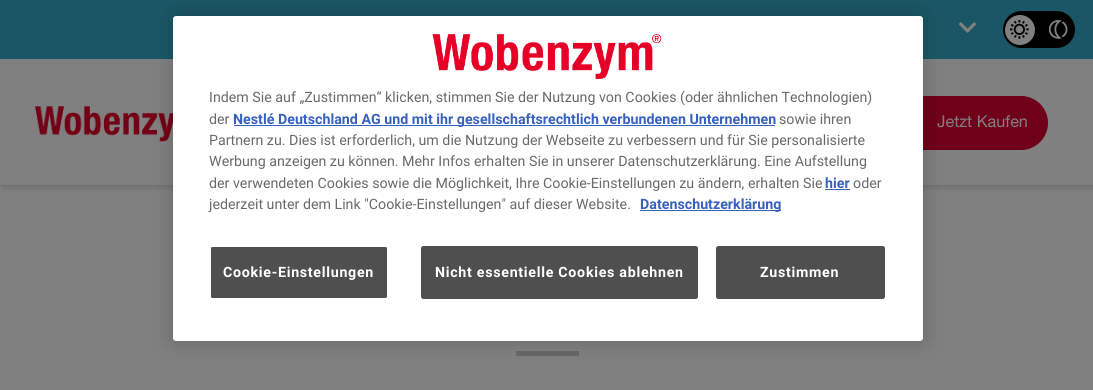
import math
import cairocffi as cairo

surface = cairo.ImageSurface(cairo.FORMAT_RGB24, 1093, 390)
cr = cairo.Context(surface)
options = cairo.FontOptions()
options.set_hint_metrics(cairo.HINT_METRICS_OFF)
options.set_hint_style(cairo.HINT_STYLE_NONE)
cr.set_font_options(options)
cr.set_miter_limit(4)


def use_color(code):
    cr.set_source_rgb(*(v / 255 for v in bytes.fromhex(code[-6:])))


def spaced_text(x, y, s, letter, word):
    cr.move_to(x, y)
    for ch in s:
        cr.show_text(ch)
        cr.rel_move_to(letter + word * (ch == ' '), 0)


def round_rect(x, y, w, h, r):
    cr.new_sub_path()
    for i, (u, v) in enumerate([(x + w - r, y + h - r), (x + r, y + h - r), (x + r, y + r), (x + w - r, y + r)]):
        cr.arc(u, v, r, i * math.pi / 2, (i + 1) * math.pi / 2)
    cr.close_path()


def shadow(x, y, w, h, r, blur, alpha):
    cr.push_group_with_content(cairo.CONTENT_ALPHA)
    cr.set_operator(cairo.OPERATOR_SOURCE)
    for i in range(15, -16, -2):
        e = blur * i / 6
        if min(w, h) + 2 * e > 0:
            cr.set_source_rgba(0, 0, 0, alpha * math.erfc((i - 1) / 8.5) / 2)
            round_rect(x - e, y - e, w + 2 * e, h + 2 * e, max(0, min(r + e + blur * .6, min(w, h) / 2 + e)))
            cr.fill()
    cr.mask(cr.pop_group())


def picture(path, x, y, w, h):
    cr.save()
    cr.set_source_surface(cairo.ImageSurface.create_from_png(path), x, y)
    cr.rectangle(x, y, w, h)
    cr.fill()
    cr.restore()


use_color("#808080")
cr.paint()
use_color("#000000")
shadow(3, 3, 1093, 186, 0, 2, 0.1)
use_color("#1a5665")
cr.rectangle(0, 0, 1093, 59)
cr.fill()
use_color("#808080")
cr.rectangle(1, 59, 1092, 126)
cr.fill()
picture("img5.png", 35, 106, 138, 36)
use_color("#70001a")
round_rect(869.5, 96.5, 178, 53, 26.5)
cr.fill_preserve()
cr.set_line_width(1)
cr.stroke()
use_color("#676767")
cr.rectangle(516, 351, 63, 5)
cr.fill()
use_color("#000000")
shadow(173, 16, 750, 325, 3, 11, 0.2)
use_color("#ffffff")
round_rect(173, 16, 750, 325, 3)
cr.fill()
picture("img1.png", 432, 34, 230, 45)
cr.select_font_face("Roboto")
cr.set_font_size(14.25)
use_color("#696969")
cr.move_to(209, 102)
cr.show_text("Indem Sie auf „Zustimmen“ klicken, stimmen Sie der Nutzung von Cookies (oder ähnlichen Technologien)")
cr.move_to(209, 124)
cr.show_text("der")
use_color("#3860be")
cr.rectangle(234, 125, 541, 1)
cr.fill()
cr.select_font_face("Roboto", cairo.FONT_SLANT_NORMAL, cairo.FONT_WEIGHT_BOLD)
cr.move_to(233, 124)
cr.show_text("Nestlé Deutschland AG und mit ihr gesellschaftsrechtlich verbundenen Unternehmen")
cr.select_font_face("Roboto")
use_color("#696969")
cr.move_to(779, 124)
cr.show_text("sowie ihren")
cr.move_to(209, 145)
cr.show_text("Partnern zu. Dies ist erforderlich, um die Nutzung der Webseite zu verbessern und für Sie personalisierte")
cr.move_to(209, 166)
cr.show_text("Werbung anzeigen zu können. Mehr Infos erhalten Sie in unserer Datenschutzerklärung. Eine Aufstellung")
cr.move_to(209, 188)
cr.show_text("der verwendeten Cookies sowie die Möglichkeit, Ihre Cookie-Einstellungen zu ändern, erhalten Sie")
cr.select_font_face("Roboto", cairo.FONT_SLANT_NORMAL, cairo.FONT_WEIGHT_BOLD)
use_color("#3860be")
cr.move_to(825, 188)
cr.show_text("hier")
cr.rectangle(825, 189, 25, 1)
cr.fill()
cr.select_font_face("Roboto")
use_color("#696969")
cr.move_to(853, 188)
cr.show_text("oder")
cr.move_to(209, 209)
cr.show_text("jederzeit unter dem Link \"Cookie-Einstellungen\" auf dieser Website.")
use_color("#3860be")
cr.rectangle(640, 210, 141, 1)
cr.fill()
cr.select_font_face("Roboto", cairo.FONT_SLANT_NORMAL, cairo.FONT_WEIGHT_BOLD)
cr.move_to(640, 209)
cr.show_text("Datenschutzerklärung")
use_color("#4f4f4f")
round_rect(210.5, 246.5, 177, 52, 2)
cr.fill_preserve()
use_color("#ffffff")
cr.stroke()
spaced_text(223, 277, "Cookie-Einstellungen", 0.7, 0)
use_color("#4f4f4f")
round_rect(421.5, 246.5, 276, 52, 2)
cr.fill_preserve()
cr.stroke()
use_color("#ffffff")
spaced_text(435, 277, "Nicht essentielle Cookies ablehnen", 0.7, 0)
use_color("#4f4f4f")
round_rect(716.5, 246.5, 168, 52, 2)
cr.fill_preserve()
cr.stroke()
use_color("#ffffff")
spaced_text(760, 277, "Zustimmen", 0.7, 0)
picture("img2.png", 959, 22, 17, 11)
use_color("#000000")
round_rect(1003, 11, 72, 37, 18.5)
cr.fill()
use_color("#808080")
cr.arc(1020, 30, 15, 0, 2 * math.pi)
cr.fill()
picture("img3.png", 1010, 20, 19, 19)
picture("img4.png", 1049, 20, 19, 19)
use_color("#757575")
cr.rectangle(0, 185, 4, 1)
cr.fill()
cr.select_font_face("Helvetica Neue")
cr.set_font_size(16.25)
use_color("#808080")
cr.move_to(937, 127)
cr.show_text("Jetzt Kaufen")
surface.write_to_png("result.png")
